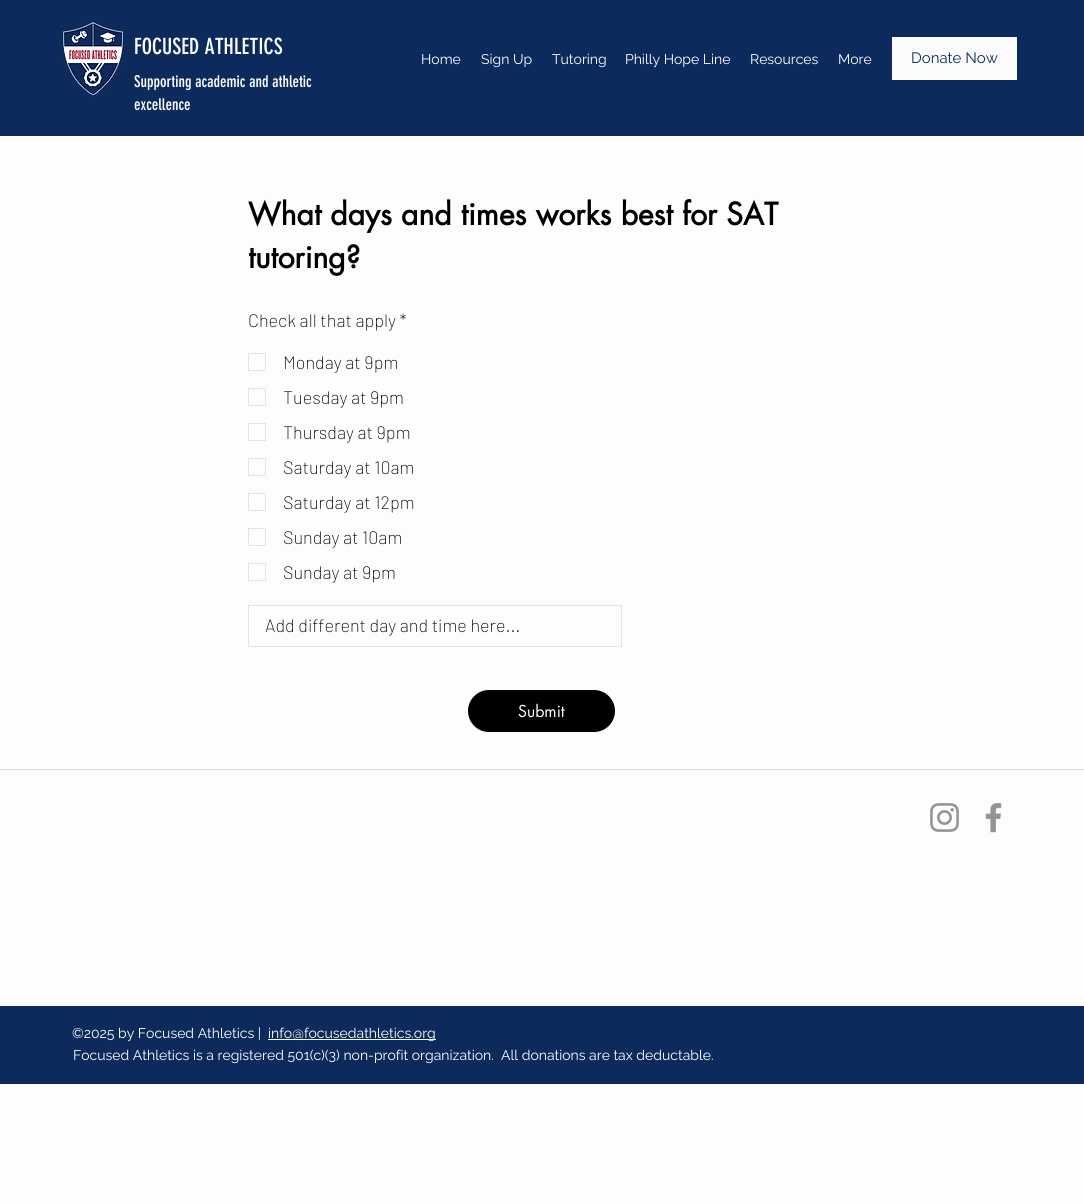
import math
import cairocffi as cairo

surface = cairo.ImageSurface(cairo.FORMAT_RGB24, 1084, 1204)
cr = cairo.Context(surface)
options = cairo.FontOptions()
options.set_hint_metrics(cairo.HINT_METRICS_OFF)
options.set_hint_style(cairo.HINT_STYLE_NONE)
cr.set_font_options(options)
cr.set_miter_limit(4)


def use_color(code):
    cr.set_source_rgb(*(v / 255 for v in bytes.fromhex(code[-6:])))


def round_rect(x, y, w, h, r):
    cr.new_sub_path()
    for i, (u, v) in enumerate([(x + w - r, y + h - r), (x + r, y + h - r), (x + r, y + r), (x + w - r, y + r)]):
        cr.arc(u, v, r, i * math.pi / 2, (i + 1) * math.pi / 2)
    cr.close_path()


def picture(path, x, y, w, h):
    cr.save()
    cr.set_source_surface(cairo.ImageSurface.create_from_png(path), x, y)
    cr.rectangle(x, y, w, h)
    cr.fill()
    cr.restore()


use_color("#fdfdfd")
cr.paint()
use_color("#0c2b5c")
cr.rectangle(0, 0, 1084, 136)
cr.fill()
picture("img1.png", 61, 20, 64, 77)
cr.select_font_face("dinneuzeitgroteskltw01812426")
cr.set_font_size(22)
use_color("#ffffff")
cr.move_to(134, 54)
cr.show_text("FOCUSED ATHLETICS")
cr.set_font_size(16)
cr.move_to(134, 87)
cr.show_text("Supporting academic and athletic")
cr.move_to(134, 110)
cr.show_text("excellence")
cr.select_font_face("Raleway")
cr.set_font_size(14)
cr.move_to(421, 64)
cr.show_text("Home")
cr.move_to(481, 64)
cr.show_text("Sign Up")
cr.move_to(552, 64)
cr.show_text("Tutoring")
cr.move_to(625, 64)
cr.show_text("Philly Hope Line")
cr.move_to(750, 64)
cr.show_text("Resources")
cr.move_to(838, 64)
cr.show_text("More")
use_color("#fbfbfb")
cr.rectangle(892, 37, 125, 43)
cr.fill()
cr.set_font_size(15)
use_color("#0c2b5c")
cr.move_to(911, 63)
cr.show_text("Donate Now")
cr.select_font_face("futura", cairo.FONT_SLANT_NORMAL, cairo.FONT_WEIGHT_BOLD)
cr.set_font_size(30)
use_color("#000000")
cr.move_to(248, 225)
cr.show_text("What days and times works best for SAT")
cr.move_to(248, 268)
cr.show_text("tutoring?")
cr.select_font_face("Barlow ExtraLight")
cr.set_font_size(18)
cr.move_to(248, 327)
cr.show_text("Check all that apply *")
cr.rectangle(248.5, 353.5, 17, 17)
use_color("#e3e3e3")
cr.set_line_width(1)
cr.stroke()
use_color("#000000")
cr.move_to(283, 369)
cr.show_text("Monday at 9pm")
cr.rectangle(248.5, 388.5, 17, 17)
use_color("#e3e3e3")
cr.stroke()
use_color("#000000")
cr.move_to(283, 404)
cr.show_text("Tuesday at 9pm")
cr.rectangle(248.5, 423.5, 17, 17)
use_color("#e3e3e3")
cr.stroke()
use_color("#000000")
cr.move_to(283, 439)
cr.show_text("Thursday at 9pm")
cr.rectangle(248.5, 458.5, 17, 17)
use_color("#e3e3e3")
cr.stroke()
use_color("#000000")
cr.move_to(283, 474)
cr.show_text("Saturday at 10am")
cr.rectangle(248.5, 493.5, 17, 17)
use_color("#e3e3e3")
cr.stroke()
use_color("#000000")
cr.move_to(283, 509)
cr.show_text("Saturday at 12pm")
cr.rectangle(248.5, 528.5, 17, 17)
use_color("#e3e3e3")
cr.stroke()
use_color("#000000")
cr.move_to(283, 544)
cr.show_text("Sunday at 10am")
cr.rectangle(248.5, 563.5, 17, 17)
use_color("#e3e3e3")
cr.stroke()
use_color("#000000")
cr.move_to(283, 579)
cr.show_text("Sunday at 9pm")
cr.rectangle(248.5, 605.5, 373, 41)
use_color("#e3e3e3")
cr.stroke()
use_color("#000000")
cr.move_to(265, 632)
cr.show_text("Add different day and time here...")
round_rect(469, 691, 145, 40, 20)
cr.fill_preserve()
cr.set_line_width(2)
cr.stroke()
cr.select_font_face("futura")
cr.set_font_size(16)
use_color("#ffffff")
cr.move_to(518, 717)
cr.show_text("Submit")
use_color("#d7dce3")
cr.rectangle(0, 769, 1084, 1)
cr.fill()
picture("img2.png", 930, 803, 29, 29)
picture("img3.png", 985, 803, 17, 30)
use_color("#0c2b5c")
cr.rectangle(0, 1006, 1084, 78)
cr.fill()
cr.select_font_face("Raleway")
cr.set_font_size(14)
use_color("#ffffff")
cr.move_to(72, 1038)
cr.show_text("©2025 by Focused Athletics |")
use_color("#fbfbfb")
cr.rectangle(268, 1039, 168, 1)
cr.fill()
use_color("#ffffff")
cr.move_to(268, 1038)
cr.show_text("info@focusedathletics.org")
cr.move_to(73, 1060)
cr.show_text("Focused Athletics is a registered 501(c)(3) non-profit organization.  All donations are tax deductable.")
surface.write_to_png("result.png")
